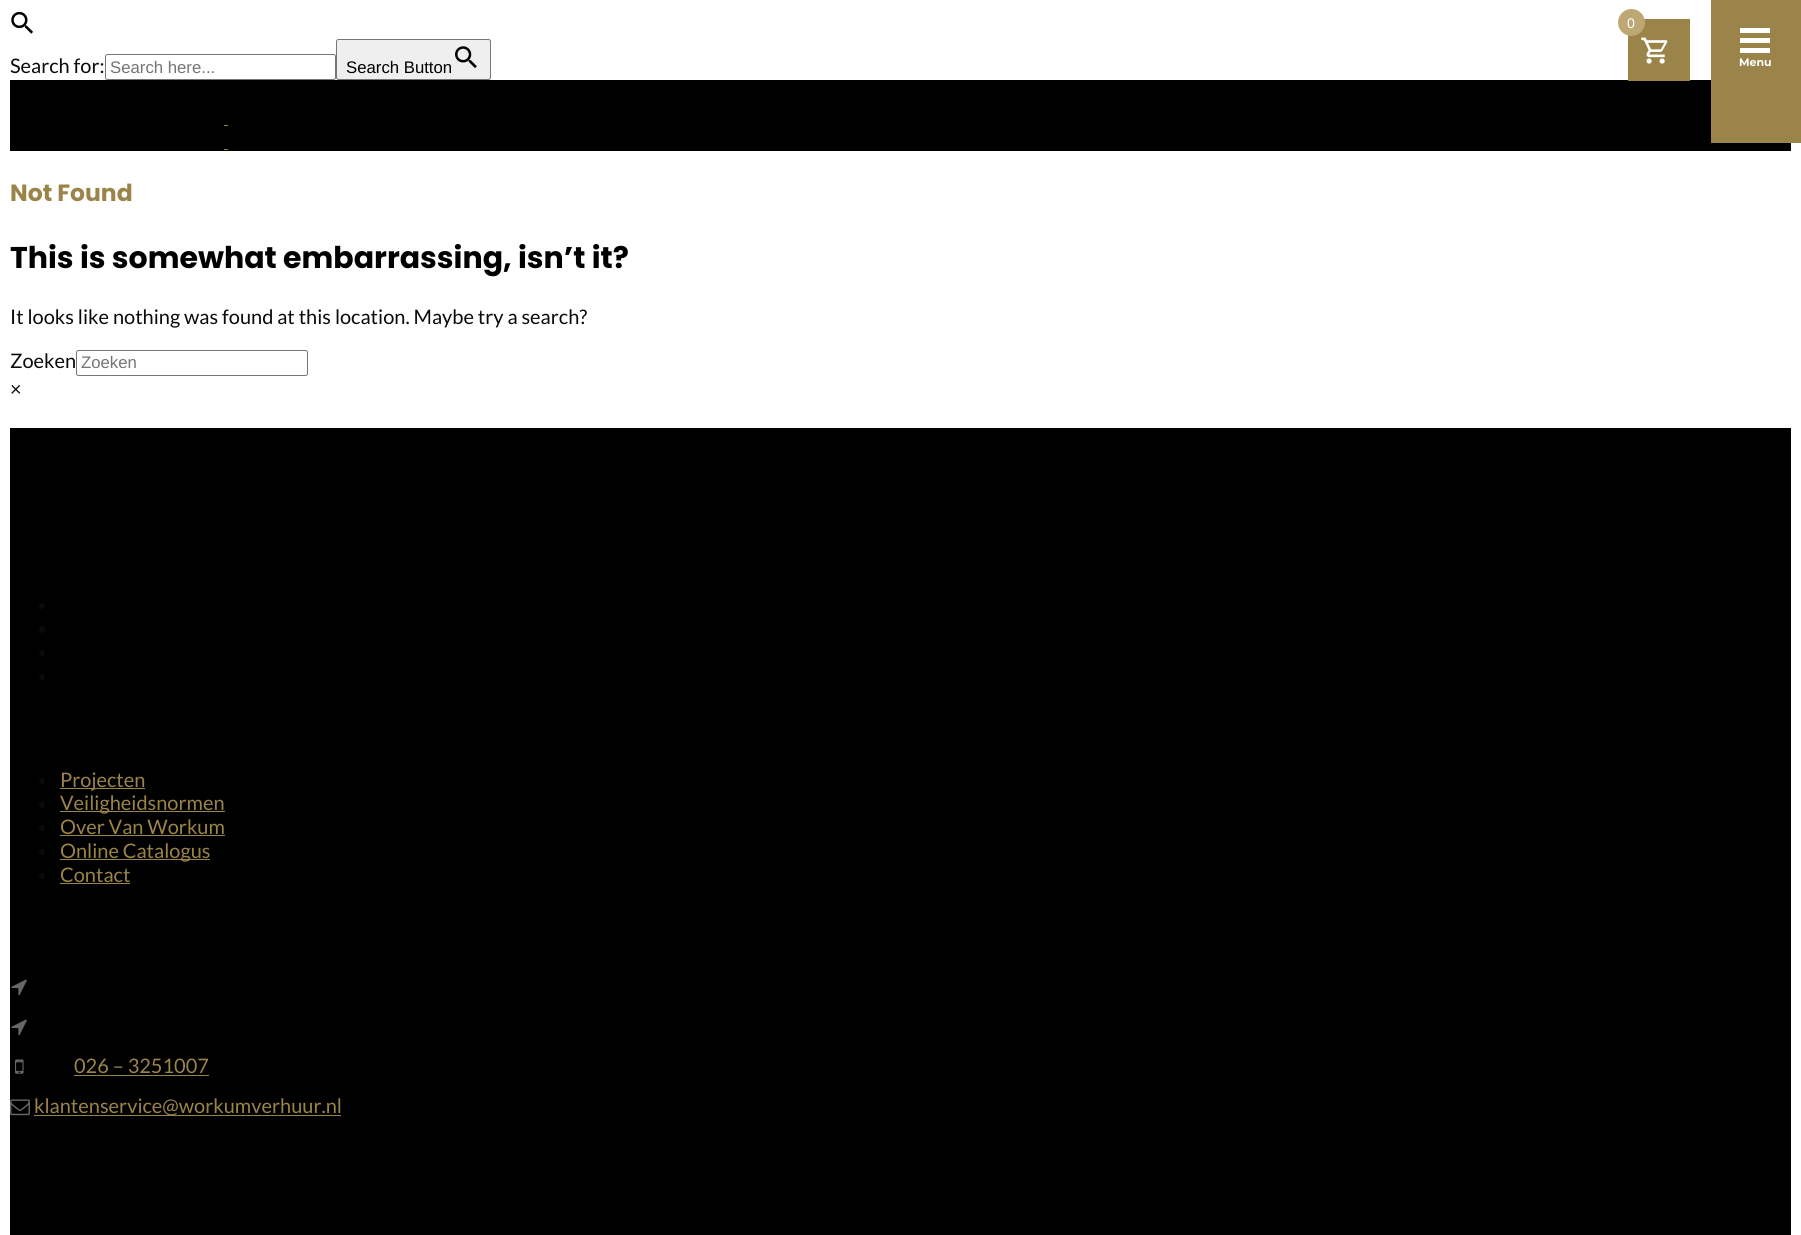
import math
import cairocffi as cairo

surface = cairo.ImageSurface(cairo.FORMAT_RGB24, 1801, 1235)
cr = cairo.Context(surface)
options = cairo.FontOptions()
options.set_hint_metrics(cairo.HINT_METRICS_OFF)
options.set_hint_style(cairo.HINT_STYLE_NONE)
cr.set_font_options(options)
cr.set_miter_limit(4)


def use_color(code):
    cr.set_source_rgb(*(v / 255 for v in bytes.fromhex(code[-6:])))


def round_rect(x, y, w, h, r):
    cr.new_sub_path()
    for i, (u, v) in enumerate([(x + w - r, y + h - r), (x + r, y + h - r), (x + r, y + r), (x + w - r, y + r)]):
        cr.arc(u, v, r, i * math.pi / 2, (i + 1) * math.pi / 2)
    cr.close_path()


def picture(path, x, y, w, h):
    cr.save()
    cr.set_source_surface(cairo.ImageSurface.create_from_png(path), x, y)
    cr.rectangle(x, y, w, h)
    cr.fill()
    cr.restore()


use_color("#ffffff")
cr.paint()
use_color("#000000")
cr.rectangle(10, 80, 1781, 71)
cr.fill()
use_color("#9b8449")
cr.rectangle(1628, 19, 62, 62)
cr.fill()
use_color("#bda873")
cr.arc(1631.5, 22.5, 13.5, 0, 2 * math.pi)
cr.fill()
cr.select_font_face("Liberation Sans")
cr.set_font_size(14)
use_color("#ffffff")
cr.move_to(1627, 28)
cr.show_text("0")
picture("img1.png", 1641, 37, 27, 27)
picture("img2.png", 11, 11, 22, 23)
cr.select_font_face("Lato")
cr.set_font_size(20)
use_color("#0a0a0a")
cr.move_to(10, 73)
cr.show_text("Search for:")
round_rect(105.5, 54.5, 230, 25, 2)
use_color("#767676")
cr.set_line_width(1)
cr.stroke()
cr.select_font_face("Liberation Sans")
cr.set_font_size(16.75)
use_color("#757575")
cr.move_to(110, 73)
cr.show_text("Search here...")
use_color("#efefef")
round_rect(336.5, 39.5, 154, 40, 2)
cr.fill_preserve()
use_color("#767676")
cr.stroke()
use_color("#000000")
cr.move_to(346, 73)
cr.show_text("Search Button")
picture("img3.png", 455, 46, 22, 22)
use_color("#9b8449")
cr.rectangle(1711, 0, 90, 143)
cr.fill()
use_color("#ffffff")
cr.rectangle(1740, 28, 30, 5)
cr.fill()
cr.rectangle(1740, 38, 30, 5)
cr.fill()
cr.rectangle(1740, 48, 30, 5)
cr.fill()
cr.select_font_face("Montserrat", cairo.FONT_SLANT_NORMAL, cairo.FONT_WEIGHT_BOLD)
cr.set_font_size(11)
cr.move_to(1739, 66)
cr.show_text("Menu")
use_color("#9b8449")
cr.rectangle(224, 125, 4, 1)
cr.fill()
cr.rectangle(224, 149, 4, 1)
cr.fill()
cr.select_font_face("Poppins", cairo.FONT_SLANT_NORMAL, cairo.FONT_WEIGHT_BOLD)
cr.set_font_size(23.5)
cr.move_to(10, 201)
cr.show_text("Not Found")
cr.set_font_size(30)
use_color("#000000")
cr.move_to(10, 268)
cr.show_text("This is somewhat embarrassing, isn’t it?")
cr.select_font_face("Lato")
cr.set_font_size(20)
use_color("#0a0a0a")
cr.move_to(10, 324)
cr.show_text("It looks like nothing was found at this location. Maybe try a search?")
cr.move_to(10, 368)
cr.show_text("Zoeken")
round_rect(76.5, 350.5, 231, 25, 2)
use_color("#767676")
cr.stroke()
cr.select_font_face("Liberation Sans")
cr.set_font_size(16.75)
use_color("#757575")
cr.move_to(81, 368)
cr.show_text("Zoeken")
cr.select_font_face("Lato")
cr.set_font_size(20)
use_color("#0a0a0a")
cr.move_to(10, 396)
cr.show_text("×")
use_color("#000000")
cr.rectangle(10, 428, 1781, 807)
cr.fill()
use_color("#0a0a0a")
cr.arc(42, 606, 3, 0, 2 * math.pi)
cr.fill()
round_rect(39, 626, 6, 7, 3)
cr.fill()
cr.arc(42, 653, 3, 0, 2 * math.pi)
cr.fill()
cr.arc(42, 677, 3, 0, 2 * math.pi)
cr.fill()
cr.arc(42, 781, 3, 0, 2 * math.pi)
cr.fill()
use_color("#9b8449")
cr.rectangle(60, 788, 85, 1)
cr.fill()
cr.move_to(60, 787)
cr.show_text("Projecten")
use_color("#0a0a0a")
round_rect(39, 801, 6, 7, 3)
cr.fill()
use_color("#9b8449")
cr.rectangle(60, 811, 165, 1)
cr.fill()
cr.move_to(60, 810)
cr.show_text("Veiligheidsnormen")
use_color("#0a0a0a")
cr.new_path()
cr.arc(42, 828, 3, 0, 2 * math.pi)
cr.fill()
use_color("#9b8449")
cr.move_to(60, 834)
cr.show_text("Over Van Workum")
cr.rectangle(60, 835, 165, 1)
cr.fill()
use_color("#0a0a0a")
cr.arc(42, 852, 3, 0, 2 * math.pi)
cr.fill()
use_color("#9b8449")
cr.rectangle(60, 859, 150, 1)
cr.fill()
cr.move_to(60, 858)
cr.show_text("Online Catalogus")
use_color("#0a0a0a")
cr.new_path()
cr.arc(42, 876, 3, 0, 2 * math.pi)
cr.fill()
use_color("#9b8449")
cr.move_to(60, 882)
cr.show_text("Contact")
cr.rectangle(60, 883, 70, 1)
cr.fill()
picture("img4.png", 11, 979, 16, 17)
picture("img4.png", 11, 1019, 16, 17)
picture("img5.png", 15, 1059, 9, 15)
cr.move_to(74, 1073)
cr.show_text("026 – 3251007")
cr.rectangle(74, 1075, 135, 1)
cr.fill()
picture("img6.png", 10, 1099, 20, 17)
cr.rectangle(34, 1115, 307, 1)
cr.fill()
cr.move_to(34, 1113)
cr.show_text("klantenservice@workumverhuur.nl")
surface.write_to_png("result.png")
